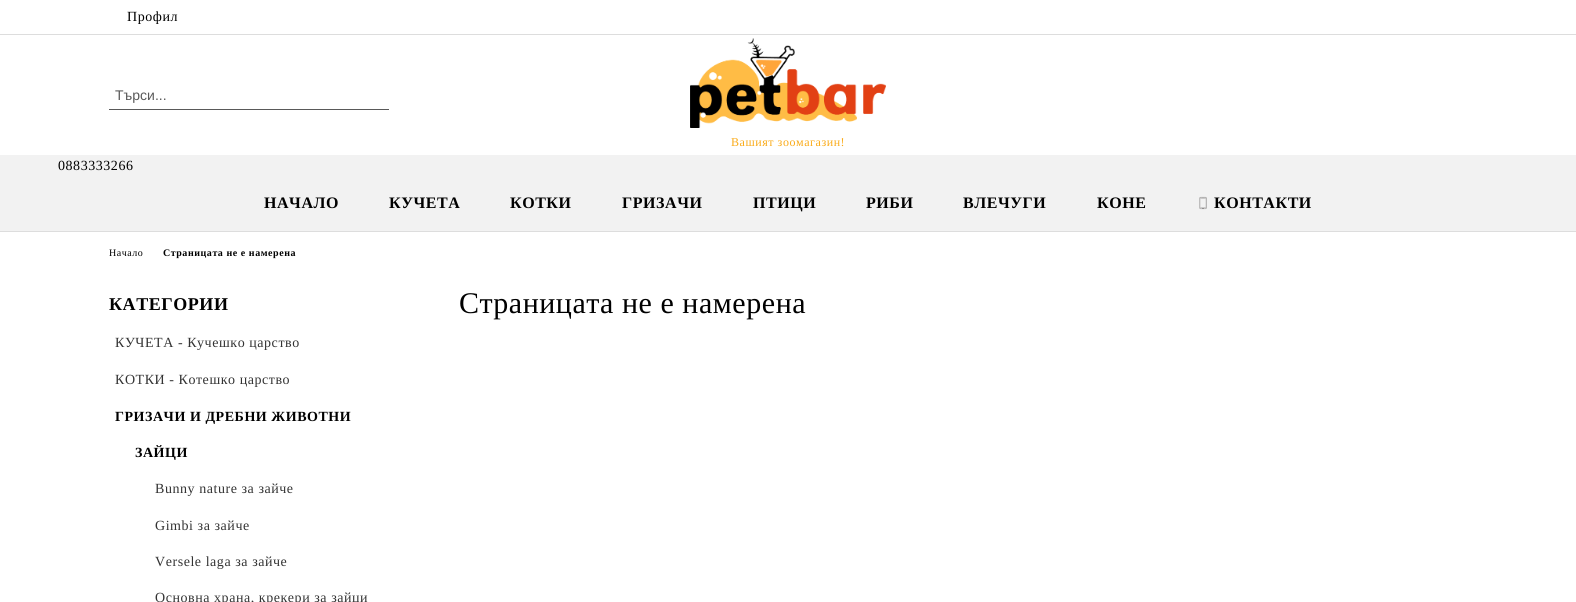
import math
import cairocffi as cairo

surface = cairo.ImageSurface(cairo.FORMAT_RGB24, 1576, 602)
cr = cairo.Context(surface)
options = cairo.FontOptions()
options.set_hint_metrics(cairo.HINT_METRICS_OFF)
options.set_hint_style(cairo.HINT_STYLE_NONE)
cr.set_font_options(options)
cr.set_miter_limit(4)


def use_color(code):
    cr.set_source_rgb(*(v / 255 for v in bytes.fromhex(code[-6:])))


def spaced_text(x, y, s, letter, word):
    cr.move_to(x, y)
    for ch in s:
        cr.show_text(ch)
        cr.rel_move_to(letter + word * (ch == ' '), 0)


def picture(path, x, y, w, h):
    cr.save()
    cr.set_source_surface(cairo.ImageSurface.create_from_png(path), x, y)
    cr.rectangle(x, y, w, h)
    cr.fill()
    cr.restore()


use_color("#ffffff")
cr.paint()
use_color("#dddddd")
cr.rectangle(0, 34, 1576, 1)
cr.fill()
cr.select_font_face("Liberation Serif")
cr.set_font_size(14)
use_color("#000000")
spaced_text(127, 21, "Профил", 0.55, 0)
use_color("#595959")
cr.rectangle(109, 109, 280, 1)
cr.fill()
cr.select_font_face("Liberation Sans")
cr.move_to(115, 100)
cr.show_text("Търси...")
picture("img1.png", 690, 38, 196, 90)
cr.select_font_face("Liberation Serif")
cr.set_font_size(12)
use_color("#faab19")
spaced_text(731, 146, "Вашият зоомагазин!", 0.55, 0)
use_color("#f2f2f2")
cr.rectangle(0, 155, 1576, 76)
cr.fill()
use_color("#dddddd")
cr.rectangle(0, 231, 1576, 1)
cr.fill()
cr.set_font_size(14)
use_color("#000000")
spaced_text(58, 170, "0883333266", 0.55, 0)
cr.select_font_face("Liberation Serif", cairo.FONT_SLANT_NORMAL, cairo.FONT_WEIGHT_BOLD)
cr.set_font_size(16)
spaced_text(264, 208, "НАЧАЛО", 0.55, 0)
spaced_text(389, 208, "КУЧЕТА", 0.55, 0)
spaced_text(510, 208, "КОТКИ", 0.55, 0)
spaced_text(622, 208, "ГРИЗАЧИ", 0.55, 0)
spaced_text(753, 208, "ПТИЦИ", 0.55, 0)
spaced_text(866, 208, "РИБИ", 0.55, 0)
spaced_text(963, 208, "ВЛЕЧУГИ", 0.55, 0)
spaced_text(1097, 208, "КОНЕ", 0.55, 0)
picture("img2.png", 1199, 196, 8, 14)
spaced_text(1214, 208, "КОНТАКТИ", 0.55, 0)
cr.select_font_face("Liberation Serif")
cr.set_font_size(10)
spaced_text(109, 256, "Начало", 0.55, 0)
cr.select_font_face("Liberation Serif", cairo.FONT_SLANT_NORMAL, cairo.FONT_WEIGHT_BOLD)
spaced_text(163, 256, "Страницата не е намерена", 0.55, 0)
cr.select_font_face("Liberation Serif")
cr.set_font_size(30)
spaced_text(459, 313, "Страницата не е намерена", 0.55, 0)
cr.select_font_face("Liberation Serif", cairo.FONT_SLANT_NORMAL, cairo.FONT_WEIGHT_BOLD)
cr.set_font_size(18)
spaced_text(109, 310, "КАТЕГОРИИ", 0.55, 0)
cr.select_font_face("Liberation Serif")
cr.set_font_size(14)
use_color("#333333")
spaced_text(115, 347, "КУЧЕТА - Кучешко царство", 0.55, 0)
spaced_text(115, 384, "КОТКИ - Котешко царство", 0.55, 0)
cr.select_font_face("Liberation Serif", cairo.FONT_SLANT_NORMAL, cairo.FONT_WEIGHT_BOLD)
use_color("#000000")
spaced_text(115, 421, "ГРИЗАЧИ И ДРЕБНИ ЖИВОТНИ", 0.55, 0)
spaced_text(135, 457, "ЗАЙЦИ", 0.55, 0)
cr.select_font_face("Liberation Serif")
use_color("#333333")
spaced_text(155, 493, "Bunny nature за зайче", 0.55, 0)
spaced_text(155, 530, "Gimbi за зайче", 0.55, 0)
spaced_text(155, 566, "Versele laga за зайче", 0.55, 0)
spaced_text(155, 602, "Основна храна, крекери за зайци", 0.55, 0)
surface.write_to_png("result.png")
